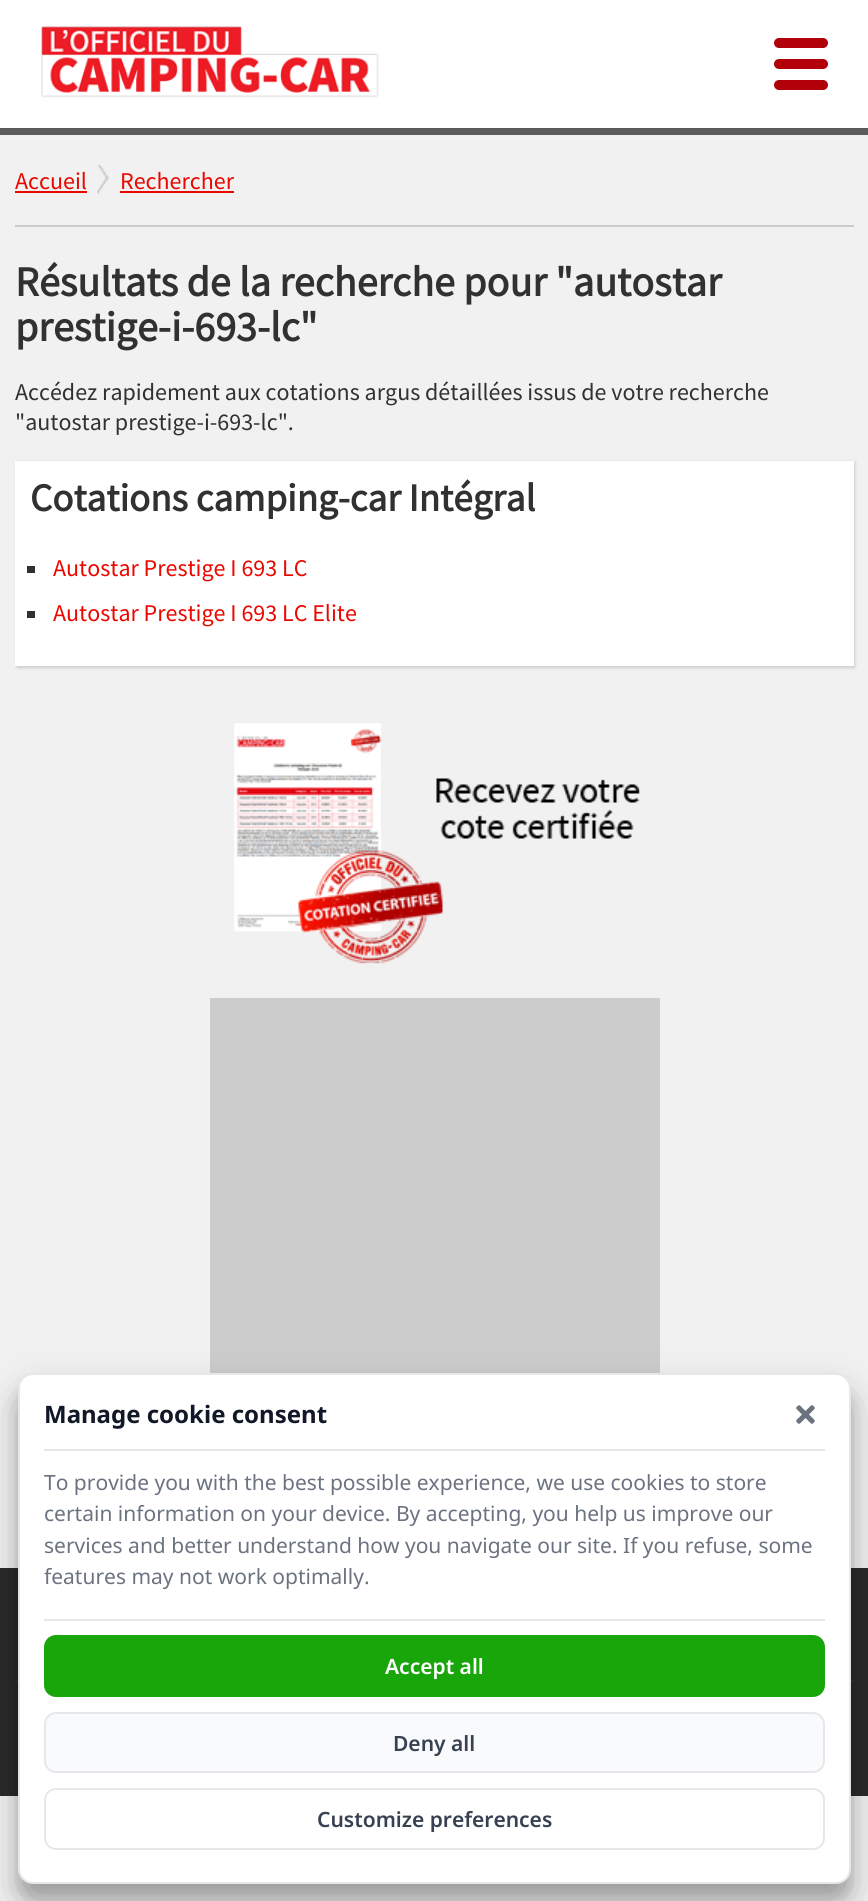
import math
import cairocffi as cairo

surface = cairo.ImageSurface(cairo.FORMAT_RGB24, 868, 1901)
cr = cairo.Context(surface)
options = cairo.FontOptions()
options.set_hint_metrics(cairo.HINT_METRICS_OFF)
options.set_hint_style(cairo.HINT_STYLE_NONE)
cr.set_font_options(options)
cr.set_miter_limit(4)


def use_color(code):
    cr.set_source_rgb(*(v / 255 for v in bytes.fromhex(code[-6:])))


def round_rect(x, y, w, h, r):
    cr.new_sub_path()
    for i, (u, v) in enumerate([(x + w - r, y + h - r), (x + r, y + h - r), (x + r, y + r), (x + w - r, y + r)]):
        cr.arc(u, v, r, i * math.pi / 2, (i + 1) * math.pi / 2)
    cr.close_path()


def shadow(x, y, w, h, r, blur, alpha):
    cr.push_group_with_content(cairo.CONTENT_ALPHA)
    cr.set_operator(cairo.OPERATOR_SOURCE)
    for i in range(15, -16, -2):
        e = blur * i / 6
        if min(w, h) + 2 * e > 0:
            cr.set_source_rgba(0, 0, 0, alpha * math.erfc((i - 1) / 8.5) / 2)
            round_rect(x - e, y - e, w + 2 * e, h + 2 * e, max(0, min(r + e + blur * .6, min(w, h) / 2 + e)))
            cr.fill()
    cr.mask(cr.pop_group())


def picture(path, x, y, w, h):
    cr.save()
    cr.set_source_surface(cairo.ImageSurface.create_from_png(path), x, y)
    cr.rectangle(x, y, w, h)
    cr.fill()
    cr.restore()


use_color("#f1f1f1")
cr.paint()
use_color("#ffffff")
cr.rectangle(0, 0, 868, 128)
cr.fill()
use_color("#5c5c5c")
cr.rectangle(0, 128, 868, 7)
cr.fill()
picture("img1.png", 41, 26, 338, 72)
use_color("#b1000a")
round_rect(774, 38, 54, 10, 5)
cr.fill()
round_rect(774, 59, 54, 10, 5)
cr.fill()
round_rect(774, 80, 54, 10, 5)
cr.fill()
cr.select_font_face("Source Sans Pro")
cr.set_font_size(24)
use_color("#ea0700")
cr.move_to(15, 189)
cr.show_text("Accueil")
cr.rectangle(15, 191, 72, 2)
cr.fill()
picture("img2.png", 97, 165, 12, 29)
cr.move_to(120, 189)
cr.show_text("Rechercher")
cr.rectangle(120, 191, 114, 2)
cr.fill()
use_color("#cccccc")
cr.rectangle(15, 225, 839, 2)
cr.fill()
cr.select_font_face("Source Sans Pro", cairo.FONT_SLANT_NORMAL, cairo.FONT_WEIGHT_BOLD)
cr.set_font_size(42)
use_color("#313131")
cr.move_to(15, 296)
cr.show_text("Résultats de la recherche pour \"autostar")
cr.move_to(15, 341)
cr.show_text("prestige-i-693-lc\"")
cr.select_font_face("Source Sans Pro")
cr.set_font_size(24)
cr.move_to(15, 400)
cr.show_text("Accédez rapidement aux cotations argus détaillées issus de votre recherche")
cr.move_to(15, 430)
cr.show_text("\"autostar prestige-i-693-lc\".")
use_color("#cccccc")
shadow(17, 462, 838, 206, 0, 1.5, 1)
use_color("#ffffff")
cr.rectangle(15, 461, 839, 205)
cr.fill()
cr.select_font_face("Source Sans Pro", cairo.FONT_SLANT_NORMAL, cairo.FONT_WEIGHT_BOLD)
cr.set_font_size(39)
use_color("#313131")
cr.move_to(30, 511)
cr.show_text("Cotations camping-car Intégral")
cr.rectangle(27, 566, 8, 7)
cr.fill()
cr.select_font_face("Source Sans Pro")
cr.set_font_size(24)
use_color("#ea0700")
cr.move_to(53, 576)
cr.show_text("Autostar Prestige I 693 LC")
use_color("#313131")
cr.rectangle(27, 611, 8, 7)
cr.fill()
use_color("#ea0700")
cr.move_to(53, 621)
cr.show_text("Autostar Prestige I 693 LC Elite")
picture("img3.png", 234, 723, 407, 241)
use_color("#cccccc")
cr.rectangle(210, 998, 450, 375)
cr.fill()
use_color("#2a2a2a")
cr.rectangle(0, 1568, 868, 228)
cr.fill()
use_color("#333333")
cr.rectangle(15, 1680, 839, 2)
cr.fill()
use_color("#000000")
shadow(18, 1388, 833, 511, 15, 7.5, 0.18)
shadow(18, 1394, 833, 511, 15, 21, 0.22)
use_color("#ffffff")
round_rect(19, 1374, 831, 509, 14)
cr.fill_preserve()
use_color("#e5e7eb")
cr.stroke()
cr.select_font_face("Noto Sans", cairo.FONT_SLANT_NORMAL, cairo.FONT_WEIGHT_BOLD)
use_color("#111827")
cr.move_to(44, 1423)
cr.show_text("Manage cookie consent")
picture("img4.png", 796, 1405, 19, 19)
use_color("#e5e7eb")
cr.rectangle(44, 1449, 781, 2)
cr.fill()
cr.select_font_face("Noto Sans")
cr.set_font_size(21)
use_color("#6b7280")
cr.move_to(44, 1490)
cr.show_text("To provide you with the best possible experience, we use cookies to store")
cr.move_to(44, 1521)
cr.show_text("certain information on your device. By accepting, you help us improve our")
cr.move_to(44, 1553)
cr.show_text("services and better understand how you navigate our site. If you refuse, some")
cr.move_to(44, 1584)
cr.show_text("features may not work optimally.")
use_color("#e5e7eb")
cr.rectangle(44, 1619, 781, 2)
cr.fill()
use_color("#18a60b")
round_rect(45, 1636, 779, 60, 11)
cr.fill_preserve()
cr.stroke()
cr.select_font_face("Noto Sans SemiBold")
use_color("#ffffff")
cr.move_to(385, 1674)
cr.show_text("Accept all")
use_color("#f9fafb")
round_rect(45, 1713, 779, 59, 11)
cr.fill_preserve()
use_color("#e5e7eb")
cr.stroke()
use_color("#374151")
cr.move_to(393, 1751)
cr.show_text("Deny all")
round_rect(45, 1789, 779, 60, 11)
use_color("#e5e7eb")
cr.stroke()
use_color("#374151")
cr.move_to(317, 1827)
cr.show_text("Customize preferences")
surface.write_to_png("result.png")
